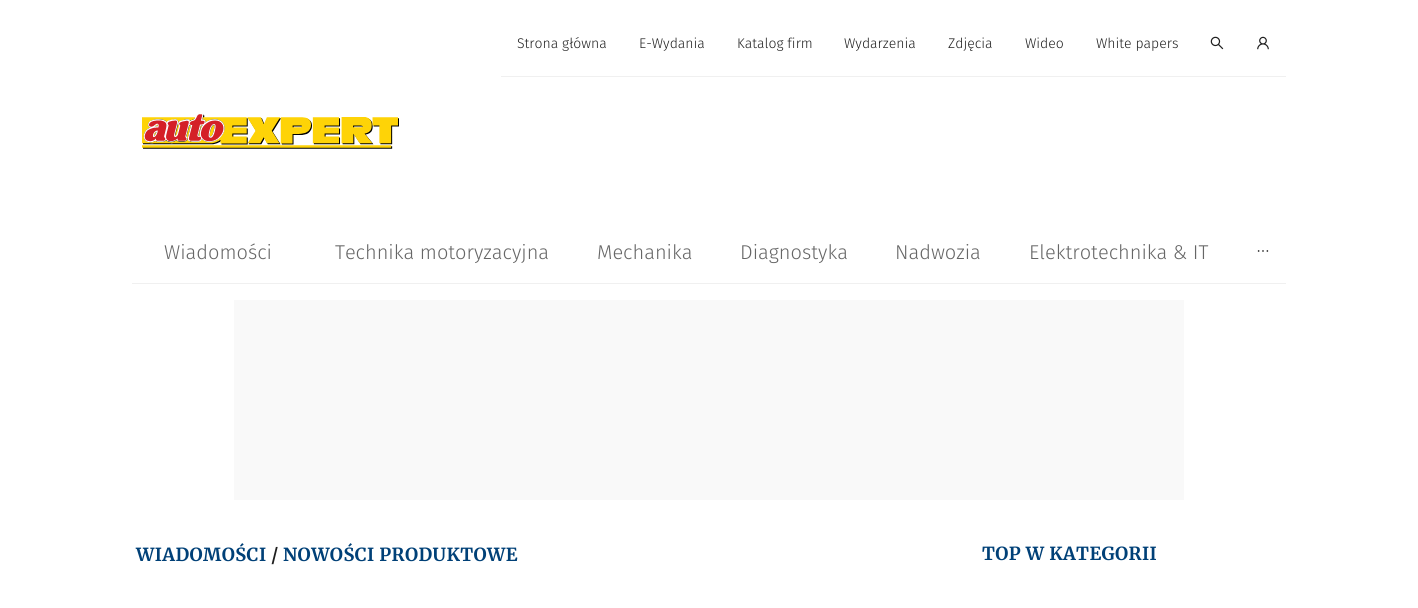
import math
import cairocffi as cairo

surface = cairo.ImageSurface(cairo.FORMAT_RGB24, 1418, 608)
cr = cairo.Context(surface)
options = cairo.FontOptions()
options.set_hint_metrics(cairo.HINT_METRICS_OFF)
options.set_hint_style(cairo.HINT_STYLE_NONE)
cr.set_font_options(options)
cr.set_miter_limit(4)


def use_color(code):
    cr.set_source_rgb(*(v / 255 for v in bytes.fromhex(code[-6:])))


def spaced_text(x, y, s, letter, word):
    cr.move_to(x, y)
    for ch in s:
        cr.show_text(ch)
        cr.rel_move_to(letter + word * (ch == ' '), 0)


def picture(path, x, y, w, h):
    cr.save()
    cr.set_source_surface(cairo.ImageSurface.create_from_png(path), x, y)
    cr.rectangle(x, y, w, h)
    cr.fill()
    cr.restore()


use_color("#ffffff")
cr.paint()
use_color("#f0f0f0")
cr.rectangle(501, 76, 785, 1)
cr.fill()
cr.select_font_face("Fira Sans Light")
cr.set_font_size(14)
use_color("#1f1f1f")
cr.move_to(517, 48)
cr.show_text("Strona główna")
cr.move_to(639, 48)
cr.show_text("E-Wydania")
cr.move_to(737, 48)
cr.show_text("Katalog firm")
cr.move_to(844, 48)
cr.show_text("Wydarzenia")
cr.move_to(948, 48)
cr.show_text("Zdjęcia")
cr.move_to(1025, 48)
cr.show_text("Wideo")
cr.move_to(1096, 48)
cr.show_text("White papers")
picture("img1.png", 1210, 36, 14, 14)
picture("img2.png", 1257, 36, 12, 14)
picture("img3.png", 142, 114, 257, 35)
use_color("#f0f0f0")
cr.rectangle(132, 283, 1154, 1)
cr.fill()
cr.set_font_size(20)
use_color("#666666")
cr.move_to(164, 259)
cr.show_text("Wiadomości")
cr.move_to(335, 259)
cr.show_text("Technika motoryzacyjna")
cr.move_to(597, 259)
cr.show_text("Mechanika")
cr.move_to(740, 259)
cr.show_text("Diagnostyka")
cr.move_to(895, 259)
cr.show_text("Nadwozia")
cr.move_to(1029, 259)
cr.show_text("Elektrotechnika & IT")
picture("img4.png", 1257, 250, 12, 2)
use_color("#f9f9f9")
cr.rectangle(234, 300, 950, 200)
cr.fill()
cr.select_font_face("Merriweather", cairo.FONT_SLANT_NORMAL, cairo.FONT_WEIGHT_BOLD)
cr.set_font_size(18)
use_color("#004077")
spaced_text(136, 561, "WIADOMOŚCI", 0.4, 0)
use_color("#1f1f1f")
spaced_text(271, 561, "/", 0.4, 0)
use_color("#004077")
spaced_text(283, 561, "NOWOŚCI PRODUKTOWE", 0.4, 0)
spaced_text(982, 560, "TOP W KATEGORII", 0.4, 0)
surface.write_to_png("result.png")
